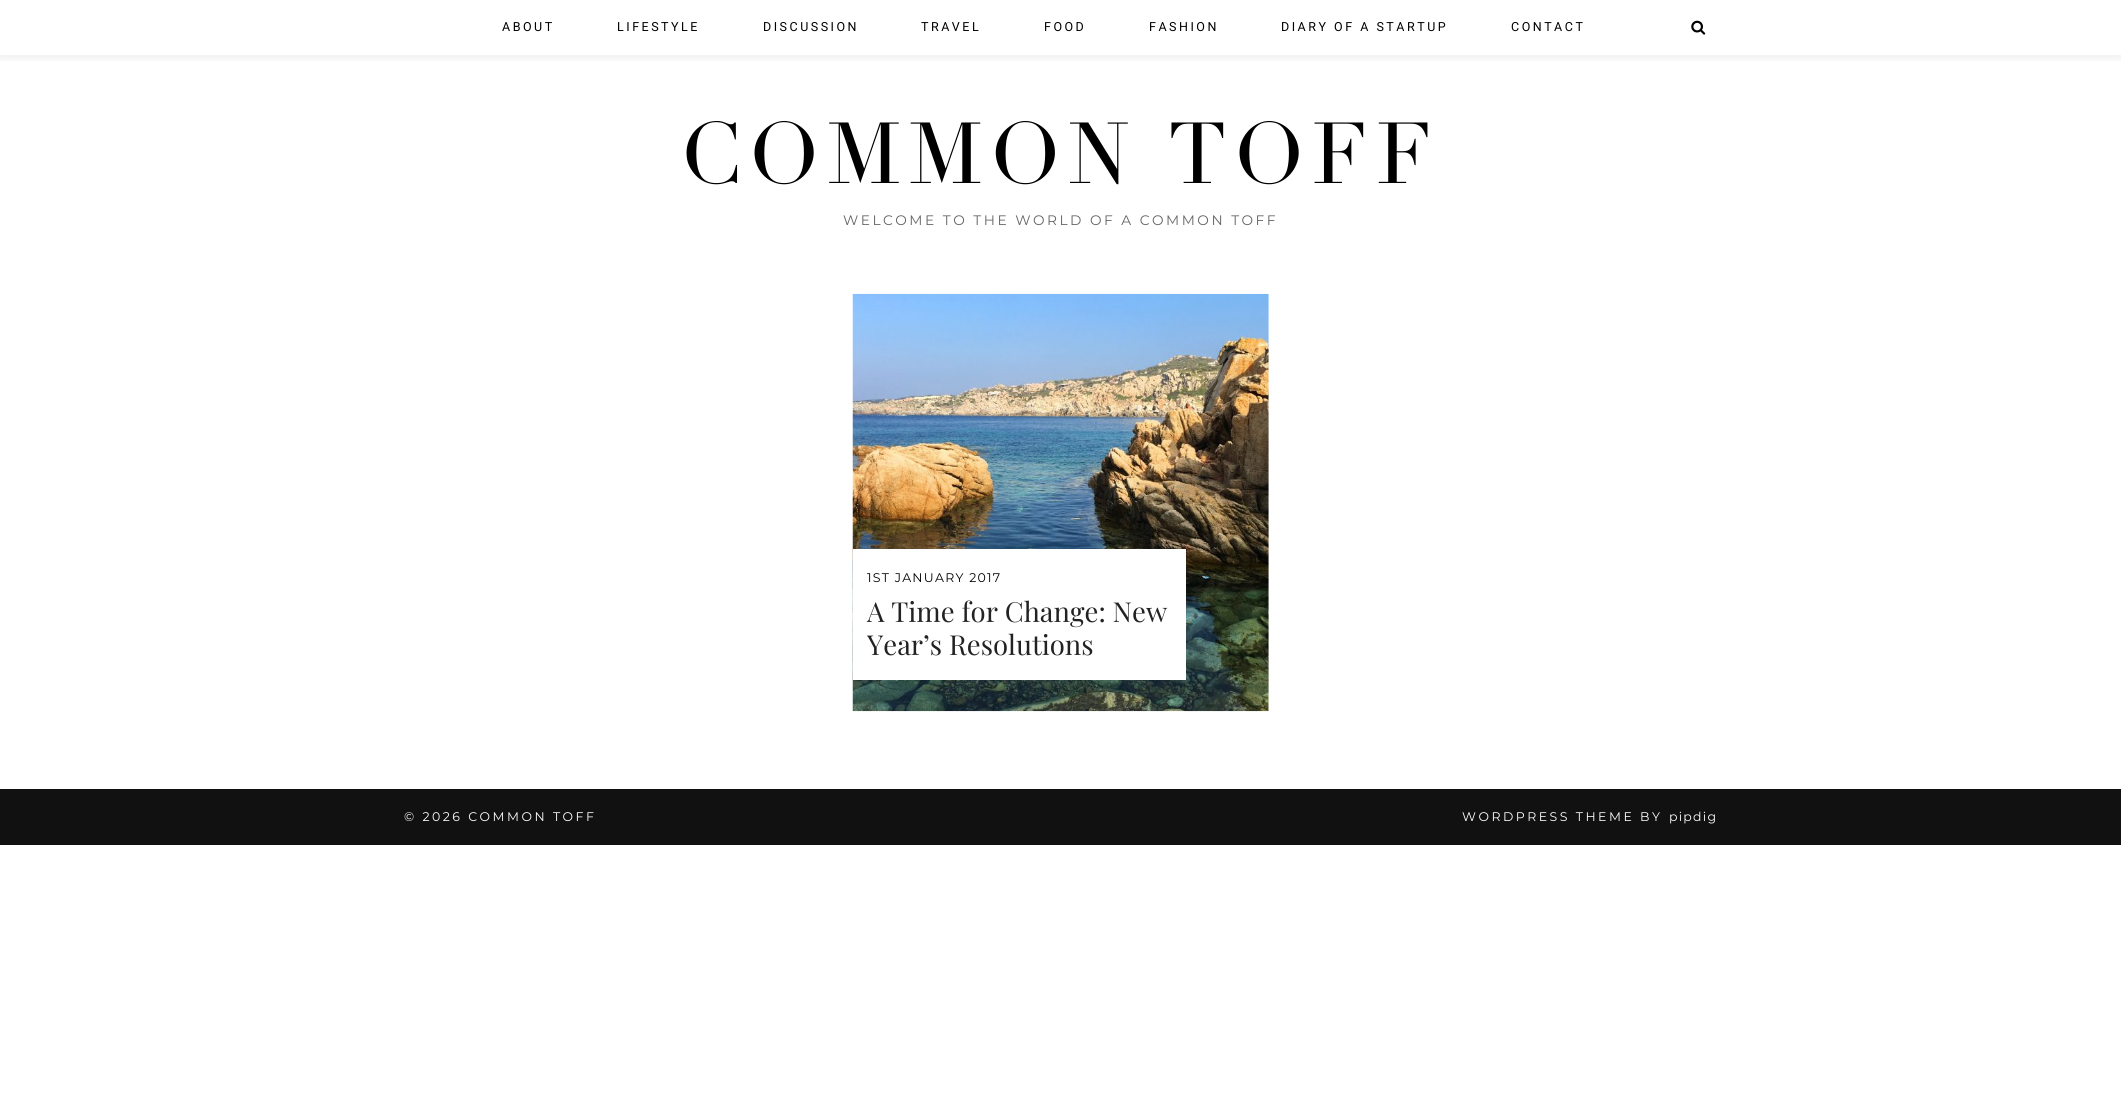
import math
import cairocffi as cairo

surface = cairo.ImageSurface(cairo.FORMAT_RGB24, 2121, 1119)
cr = cairo.Context(surface)
options = cairo.FontOptions()
options.set_hint_metrics(cairo.HINT_METRICS_OFF)
options.set_hint_style(cairo.HINT_STYLE_NONE)
cr.set_font_options(options)
cr.set_miter_limit(4)


def use_color(code):
    cr.set_source_rgb(*(v / 255 for v in bytes.fromhex(code[-6:])))


def spaced_text(x, y, s, letter, word):
    cr.move_to(x, y)
    for ch in s:
        cr.show_text(ch)
        cr.rel_move_to(letter + word * (ch == ' '), 0)


def round_rect(x, y, w, h, r):
    cr.new_sub_path()
    for i, (u, v) in enumerate([(x + w - r, y + h - r), (x + r, y + h - r), (x + r, y + r), (x + w - r, y + r)]):
        cr.arc(u, v, r, i * math.pi / 2, (i + 1) * math.pi / 2)
    cr.close_path()


def shadow(x, y, w, h, r, blur, alpha):
    cr.push_group_with_content(cairo.CONTENT_ALPHA)
    cr.set_operator(cairo.OPERATOR_SOURCE)
    for i in range(15, -16, -2):
        e = blur * i / 6
        if min(w, h) + 2 * e > 0:
            cr.set_source_rgba(0, 0, 0, alpha * math.erfc((i - 1) / 8.5) / 2)
            round_rect(x - e, y - e, w + 2 * e, h + 2 * e, max(0, min(r + e + blur * .6, min(w, h) / 2 + e)))
            cr.fill()
    cr.mask(cr.pop_group())


def picture(path, x, y, w, h):
    cr.save()
    cr.set_source_surface(cairo.ImageSurface.create_from_png(path), x, y)
    cr.rectangle(x, y, w, h)
    cr.fill()
    cr.restore()


use_color("#ffffff")
cr.paint()
cr.save()
cr.rectangle(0, 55, 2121, 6)
cr.clip()
use_color("#000000")
shadow(0, 1, 2121, 55, 0, 6, 0.1)
cr.restore()
cr.select_font_face("Roboto")
cr.set_font_size(12.5)
use_color("#000000")
spaced_text(502, 31, "ABOUT", 2.5, 0)
spaced_text(617, 31, "LIFESTYLE", 2.5, 0)
spaced_text(763, 31, "DISCUSSION", 2.5, 0)
spaced_text(921, 31, "TRAVEL", 2.5, 0)
spaced_text(1044, 31, "FOOD", 2.5, 0)
spaced_text(1149, 31, "FASHION", 2.5, 0)
spaced_text(1281, 31, "DIARY OF A STARTUP", 2.5, 0)
spaced_text(1511, 31, "CONTACT", 2.5, 0)
picture("img1.png", 1691, 20, 15, 15)
cr.select_font_face("Didot")
cr.set_font_size(85)
spaced_text(680, 183, "COMMON TOFF", 7.5, 0)
cr.select_font_face("Montserrat Thin")
cr.set_font_size(13.75)
use_color("#666666")
spaced_text(843, 225, "WELCOME TO THE WORLD OF A COMMON TOFF", 2.5, 0)
picture("img2.png", 852, 293, 417, 419)
use_color("#ffffff")
cr.rectangle(853, 549, 333, 131)
cr.fill()
cr.set_font_size(12.5)
use_color("#000000")
spaced_text(867, 582, "1ST JANUARY 2017", 1.25, 0)
cr.select_font_face("Playfair Display")
cr.set_font_size(27.5)
use_color("#222222")
cr.move_to(867, 622)
cr.show_text("A Time for Change: New")
cr.move_to(867, 655)
cr.show_text("Year’s Resolutions")
use_color("#111111")
cr.rectangle(0, 789, 2121, 56)
cr.fill()
cr.select_font_face("Montserrat Thin")
cr.set_font_size(12.5)
use_color("#ffffff")
spaced_text(404, 821, "© 2026 COMMON TOFF", 2.5, 0)
spaced_text(1462, 821, "WORDPRESS THEME BY", 2.5, 0)
spaced_text(1669, 821, "pipdig", 1.25, 0)
surface.write_to_png("result.png")
